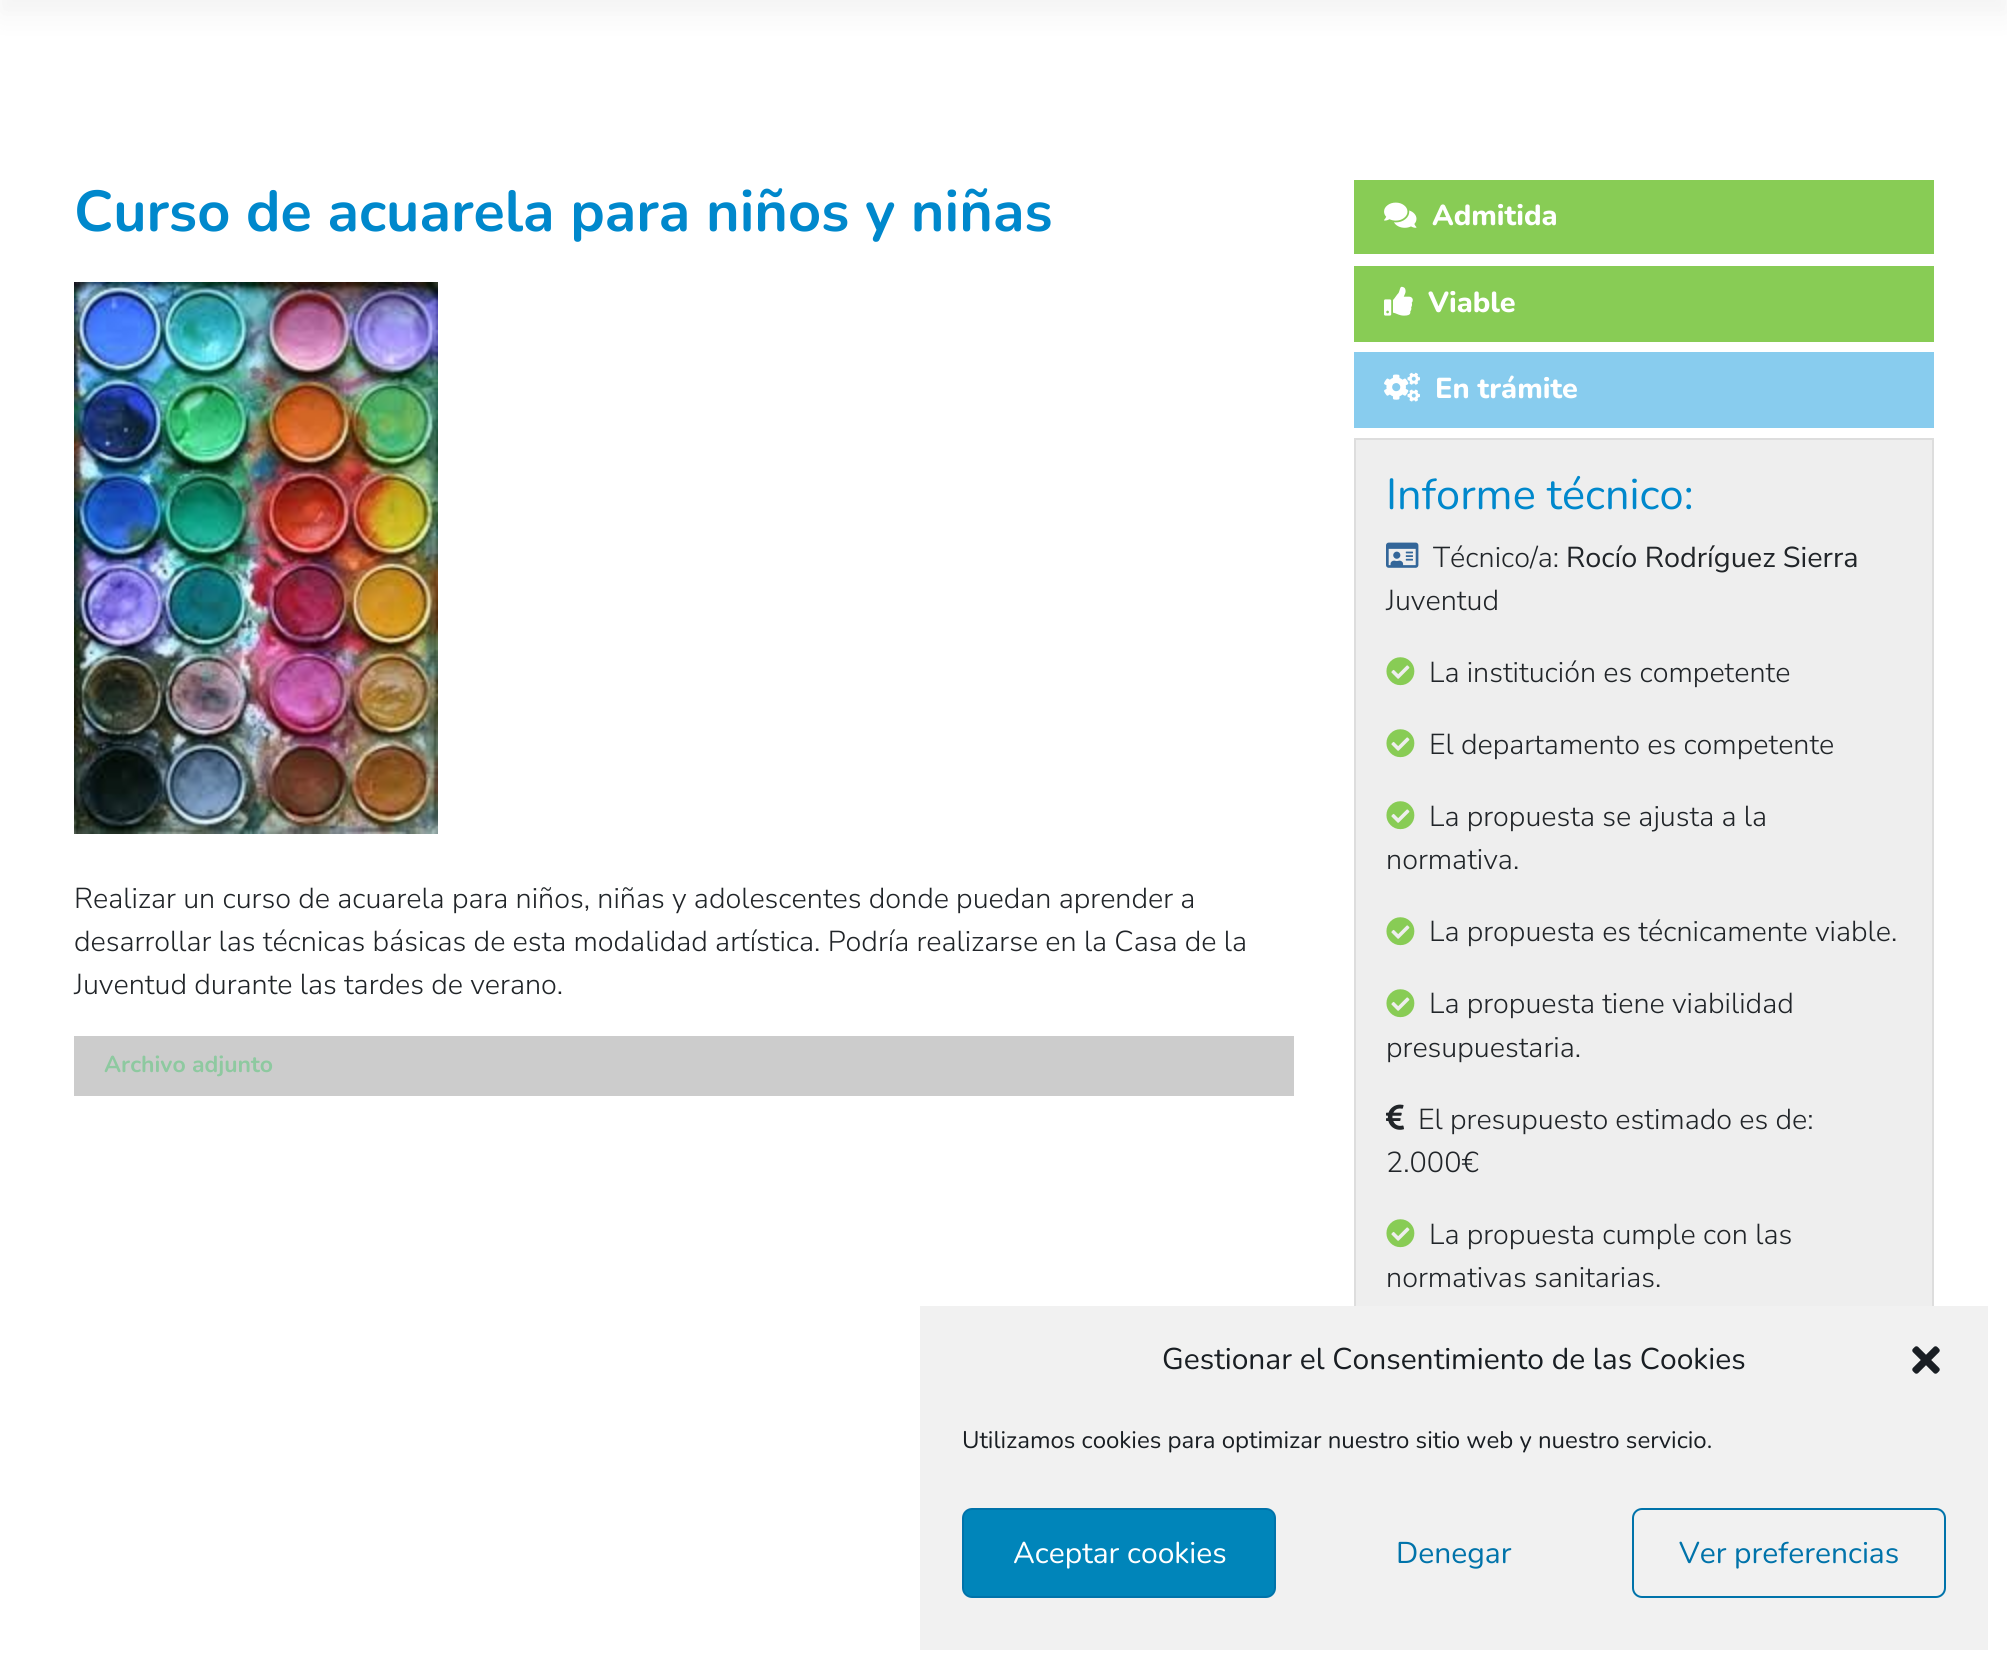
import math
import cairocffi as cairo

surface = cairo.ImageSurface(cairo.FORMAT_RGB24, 2007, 1669)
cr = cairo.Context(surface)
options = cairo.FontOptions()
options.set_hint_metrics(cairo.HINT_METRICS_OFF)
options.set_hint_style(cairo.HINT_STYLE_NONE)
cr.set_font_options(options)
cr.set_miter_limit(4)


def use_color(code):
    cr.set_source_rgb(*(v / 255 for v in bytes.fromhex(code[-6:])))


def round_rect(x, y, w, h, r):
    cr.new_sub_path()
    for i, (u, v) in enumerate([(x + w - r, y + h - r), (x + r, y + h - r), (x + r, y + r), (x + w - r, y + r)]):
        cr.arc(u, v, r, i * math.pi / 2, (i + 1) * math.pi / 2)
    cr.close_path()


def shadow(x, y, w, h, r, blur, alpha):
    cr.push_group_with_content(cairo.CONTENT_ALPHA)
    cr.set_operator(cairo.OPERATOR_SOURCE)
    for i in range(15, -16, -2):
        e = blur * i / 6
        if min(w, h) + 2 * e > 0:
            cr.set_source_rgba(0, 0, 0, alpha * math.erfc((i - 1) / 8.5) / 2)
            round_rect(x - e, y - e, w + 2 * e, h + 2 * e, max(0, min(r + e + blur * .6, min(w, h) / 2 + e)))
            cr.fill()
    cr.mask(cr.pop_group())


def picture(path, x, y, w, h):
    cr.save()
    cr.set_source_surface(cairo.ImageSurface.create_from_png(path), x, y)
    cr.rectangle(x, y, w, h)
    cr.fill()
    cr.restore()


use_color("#ffffff")
cr.paint()
use_color("#000000")
shadow(0, -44, 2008, 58, 0, 14.5, 0.05)
cr.select_font_face("Nunito", cairo.FONT_SLANT_NORMAL, cairo.FONT_WEIGHT_BOLD)
cr.set_font_size(57.6)
use_color("#0088cc")
cr.move_to(74, 231)
cr.show_text("Curso de acuarela para niños y niñas")
picture("img1.png", 74, 282, 364, 552)
cr.select_font_face("Nunito Sans Light")
cr.set_font_size(28.8)
use_color("#212529")
cr.move_to(74, 908)
cr.show_text("Realizar un curso de acuarela para niños, niñas y adolescentes donde puedan aprender a")
cr.move_to(74, 951)
cr.show_text("desarrollar las técnicas básicas de esta modalidad artística. Podría realizarse en la Casa de la")
cr.move_to(74, 994)
cr.show_text("Juventud durante las tardes de verano.")
use_color("#cccccc")
cr.rectangle(74, 1036, 1220, 60)
cr.fill()
cr.select_font_face("Nunito", cairo.FONT_SLANT_NORMAL, cairo.FONT_WEIGHT_BOLD)
cr.set_font_size(23)
use_color("#8ec9a0")
cr.move_to(104, 1072)
cr.show_text("Archivo adjunto")
use_color("#88cc55")
cr.rectangle(1354, 180, 580, 74)
cr.fill()
picture("img2.png", 1384, 202, 33, 26)
cr.select_font_face("Nunito ExtraBold")
cr.set_font_size(28.8)
use_color("#ffffff")
cr.move_to(1432, 225)
cr.show_text("Admitida")
use_color("#88cc55")
cr.rectangle(1354, 266, 580, 76)
cr.fill()
picture("img3.png", 1384, 286, 29, 30)
use_color("#ffffff")
cr.move_to(1428, 312)
cr.show_text("Viable")
use_color("#88ccee")
cr.rectangle(1354, 352, 580, 76)
cr.fill()
picture("img4.png", 1384, 372, 36, 30)
use_color("#ffffff")
cr.move_to(1435, 398)
cr.show_text("En trámite")
use_color("#eeeeee")
cr.rectangle(1356, 440, 576, 866)
cr.fill()
cr.rectangle(1355, 439, 578, 1194)
use_color("#dddddd")
cr.stroke()
cr.select_font_face("Nunito")
cr.set_font_size(43.25)
use_color("#0088cc")
cr.move_to(1386, 509)
cr.show_text("Informe técnico:")
picture("img5.png", 1386, 542, 33, 26)
cr.select_font_face("Nunito Sans Light")
cr.set_font_size(28.8)
use_color("#212529")
cr.move_to(1433, 567)
cr.show_text("Técnico/a:")
cr.select_font_face("Nunito Sans")
cr.move_to(1566, 567)
cr.show_text("Rocío Rodríguez Sierra")
cr.select_font_face("Nunito Sans Light")
cr.move_to(1386, 610)
cr.show_text("Juventud")
picture("img6.png", 1386, 657, 29, 29)
cr.move_to(1429, 682)
cr.show_text("La institución es competente")
picture("img6.png", 1386, 729, 29, 29)
cr.move_to(1429, 754)
cr.show_text("El departamento es competente")
picture("img6.png", 1386, 801, 29, 29)
cr.move_to(1429, 826)
cr.show_text("La propuesta se ajusta a la")
cr.move_to(1386, 869)
cr.show_text("normativa.")
picture("img6.png", 1386, 917, 29, 29)
cr.move_to(1429, 941)
cr.show_text("La propuesta es técnicamente viable.")
picture("img6.png", 1386, 989, 29, 29)
cr.move_to(1429, 1013)
cr.show_text("La propuesta tiene viabilidad")
cr.move_to(1386, 1057)
cr.show_text("presupuestaria.")
picture("img7.png", 1386, 1104, 18, 26)
cr.move_to(1418, 1129)
cr.show_text("El presupuesto estimado es de:")
cr.move_to(1386, 1172)
cr.show_text("2.000€")
picture("img6.png", 1386, 1219, 29, 29)
cr.move_to(1429, 1244)
cr.show_text("La propuesta cumple con las")
cr.move_to(1386, 1287)
cr.show_text("normativas sanitarias.")
use_color("#f1f1f1")
cr.rectangle(920, 1306, 1068, 344)
cr.fill()
cr.select_font_face("Nunito")
cr.set_font_size(30)
use_color("#191e23")
cr.move_to(1162, 1369)
cr.show_text("Gestionar el Consentimiento de las Cookies")
picture("img8.png", 1912, 1346, 28, 28)
cr.set_font_size(24)
cr.move_to(962, 1448)
cr.show_text("Utilizamos cookies para optimizar nuestro sitio web y nuestro servicio.")
use_color("#0085ba")
round_rect(963, 1509, 312, 88, 9)
cr.fill_preserve()
use_color("#0073aa")
cr.stroke()
cr.set_font_size(30)
use_color("#ffffff")
cr.move_to(1013, 1563)
cr.show_text("Aceptar cookies")
use_color("#0073aa")
cr.move_to(1396, 1563)
cr.show_text("Denegar")
round_rect(1633, 1509, 312, 88, 9)
cr.stroke()
cr.move_to(1679, 1563)
cr.show_text("Ver preferencias")
surface.write_to_png("result.png")
